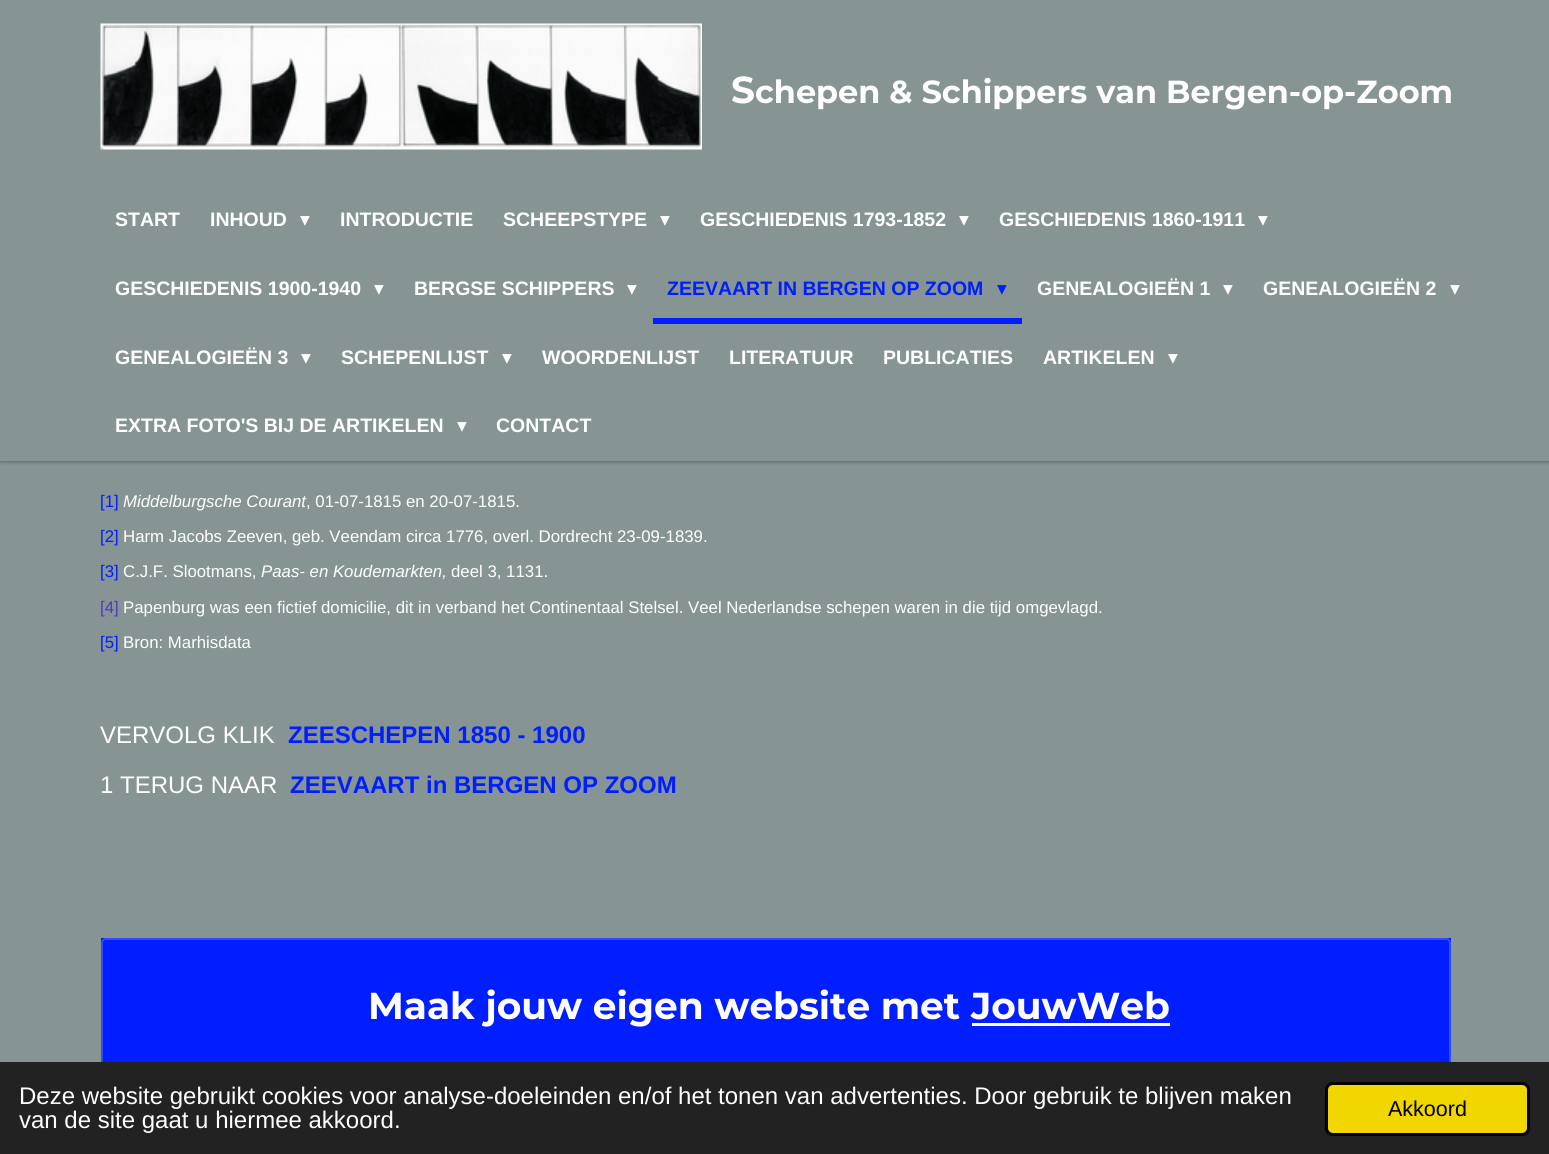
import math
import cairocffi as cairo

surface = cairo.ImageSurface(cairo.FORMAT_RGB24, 1549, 1154)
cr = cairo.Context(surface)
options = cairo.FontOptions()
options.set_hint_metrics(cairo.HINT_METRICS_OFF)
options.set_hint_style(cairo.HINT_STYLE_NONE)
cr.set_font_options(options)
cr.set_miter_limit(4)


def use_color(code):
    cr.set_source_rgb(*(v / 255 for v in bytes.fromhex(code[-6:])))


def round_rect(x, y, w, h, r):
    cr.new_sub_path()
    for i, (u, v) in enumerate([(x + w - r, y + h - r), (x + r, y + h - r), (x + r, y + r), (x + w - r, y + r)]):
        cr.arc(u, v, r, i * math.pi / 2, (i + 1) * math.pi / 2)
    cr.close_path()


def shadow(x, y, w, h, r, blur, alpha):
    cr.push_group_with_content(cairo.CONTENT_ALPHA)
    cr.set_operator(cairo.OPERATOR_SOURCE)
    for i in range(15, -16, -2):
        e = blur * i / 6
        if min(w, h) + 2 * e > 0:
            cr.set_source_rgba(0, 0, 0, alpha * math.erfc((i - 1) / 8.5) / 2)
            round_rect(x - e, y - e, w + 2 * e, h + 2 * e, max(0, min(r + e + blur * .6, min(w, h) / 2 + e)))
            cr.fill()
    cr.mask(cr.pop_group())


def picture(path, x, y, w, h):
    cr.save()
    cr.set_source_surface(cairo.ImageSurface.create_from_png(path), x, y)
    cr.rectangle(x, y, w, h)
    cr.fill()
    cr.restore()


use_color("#869593")
cr.paint()
use_color("#000000")
shadow(0, 2, 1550, 460, 0, 2, 0.3)
use_color("#869593")
cr.rectangle(0, 0, 1549, 461)
cr.fill()
picture("img1.png", 100, 23, 602, 127)
cr.select_font_face("Montserrat", cairo.FONT_SLANT_NORMAL, cairo.FONT_WEIGHT_BOLD)
cr.set_font_size(37.5)
use_color("#ffffff")
cr.move_to(731, 103)
cr.show_text("S")
cr.set_font_size(31.9)
cr.move_to(755, 103)
cr.show_text("chepen & Schippers van Bergen-op-Zoom")
cr.select_font_face("Liberation Sans", cairo.FONT_SLANT_NORMAL, cairo.FONT_WEIGHT_BOLD)
cr.set_font_size(19.5)
cr.move_to(115, 226)
cr.show_text("START")
cr.move_to(210, 226)
cr.show_text("INHOUD")
cr.select_font_face("DejaVu Sans")
cr.move_to(300, 226)
cr.show_text("▾")
cr.select_font_face("Liberation Sans", cairo.FONT_SLANT_NORMAL, cairo.FONT_WEIGHT_BOLD)
cr.move_to(340, 226)
cr.show_text("INTRODUCTIE")
cr.move_to(503, 226)
cr.show_text("SCHEEPSTYPE")
cr.select_font_face("DejaVu Sans")
cr.move_to(660, 226)
cr.show_text("▾")
cr.select_font_face("Liberation Sans", cairo.FONT_SLANT_NORMAL, cairo.FONT_WEIGHT_BOLD)
cr.move_to(700, 226)
cr.show_text("GESCHIEDENIS 1793-1852")
cr.select_font_face("DejaVu Sans")
cr.move_to(959, 226)
cr.show_text("▾")
cr.select_font_face("Liberation Sans", cairo.FONT_SLANT_NORMAL, cairo.FONT_WEIGHT_BOLD)
cr.move_to(999, 226)
cr.show_text("GESCHIEDENIS 1860-1911")
cr.select_font_face("DejaVu Sans")
cr.move_to(1258, 226)
cr.show_text("▾")
cr.select_font_face("Liberation Sans", cairo.FONT_SLANT_NORMAL, cairo.FONT_WEIGHT_BOLD)
cr.move_to(115, 295)
cr.show_text("GESCHIEDENIS 1900-1940")
cr.select_font_face("DejaVu Sans")
cr.move_to(374, 295)
cr.show_text("▾")
cr.select_font_face("Liberation Sans", cairo.FONT_SLANT_NORMAL, cairo.FONT_WEIGHT_BOLD)
cr.move_to(414, 295)
cr.show_text("BERGSE SCHIPPERS")
cr.select_font_face("DejaVu Sans")
cr.move_to(627, 295)
cr.show_text("▾")
use_color("#001eff")
cr.rectangle(653, 318, 369, 6)
cr.fill()
cr.select_font_face("Liberation Sans", cairo.FONT_SLANT_NORMAL, cairo.FONT_WEIGHT_BOLD)
cr.move_to(667, 295)
cr.show_text("ZEEVAART IN BERGEN OP ZOOM")
cr.select_font_face("DejaVu Sans")
cr.move_to(997, 295)
cr.show_text("▾")
cr.select_font_face("Liberation Sans", cairo.FONT_SLANT_NORMAL, cairo.FONT_WEIGHT_BOLD)
use_color("#ffffff")
cr.move_to(1037, 295)
cr.show_text("GENEALOGIEËN 1")
cr.select_font_face("DejaVu Sans")
cr.move_to(1223, 295)
cr.show_text("▾")
cr.select_font_face("Liberation Sans", cairo.FONT_SLANT_NORMAL, cairo.FONT_WEIGHT_BOLD)
cr.move_to(1263, 295)
cr.show_text("GENEALOGIEËN 2")
cr.select_font_face("DejaVu Sans")
cr.move_to(1450, 295)
cr.show_text("▾")
cr.select_font_face("Liberation Sans", cairo.FONT_SLANT_NORMAL, cairo.FONT_WEIGHT_BOLD)
cr.move_to(115, 364)
cr.show_text("GENEALOGIEËN 3")
cr.select_font_face("DejaVu Sans")
cr.move_to(301, 364)
cr.show_text("▾")
cr.select_font_face("Liberation Sans", cairo.FONT_SLANT_NORMAL, cairo.FONT_WEIGHT_BOLD)
cr.move_to(341, 364)
cr.show_text("SCHEPENLIJST")
cr.select_font_face("DejaVu Sans")
cr.move_to(502, 364)
cr.show_text("▾")
cr.select_font_face("Liberation Sans", cairo.FONT_SLANT_NORMAL, cairo.FONT_WEIGHT_BOLD)
cr.move_to(542, 364)
cr.show_text("WOORDENLIJST")
cr.move_to(729, 364)
cr.show_text("LITERATUUR")
cr.move_to(883, 364)
cr.show_text("PUBLICATIES")
cr.move_to(1043, 364)
cr.show_text("ARTIKELEN")
cr.select_font_face("DejaVu Sans")
cr.move_to(1168, 364)
cr.show_text("▾")
cr.select_font_face("Liberation Sans", cairo.FONT_SLANT_NORMAL, cairo.FONT_WEIGHT_BOLD)
cr.move_to(115, 432)
cr.show_text("EXTRA FOTO'S BIJ DE ARTIKELEN")
cr.select_font_face("DejaVu Sans")
cr.move_to(457, 432)
cr.show_text("▾")
cr.select_font_face("Liberation Sans", cairo.FONT_SLANT_NORMAL, cairo.FONT_WEIGHT_BOLD)
cr.move_to(496, 432)
cr.show_text("CONTACT")
cr.select_font_face("Liberation Sans")
cr.set_font_size(16.8)
use_color("#001eff")
cr.move_to(100, 507)
cr.show_text("[1]")
cr.select_font_face("Liberation Sans", cairo.FONT_SLANT_ITALIC)
use_color("#ffffff")
cr.move_to(123, 507)
cr.show_text("Middelburgsche Courant")
cr.select_font_face("Liberation Sans")
cr.move_to(306, 507)
cr.show_text(", 01-07-1815 en 20-07-1815.")
use_color("#001eff")
cr.move_to(100, 542)
cr.show_text("[2]")
use_color("#ffffff")
cr.move_to(123, 542)
cr.show_text("Harm Jacobs Zeeven, geb. Veendam circa 1776, overl. Dordrecht 23-09-1839.")
use_color("#001eff")
cr.move_to(100, 577)
cr.show_text("[3]")
use_color("#ffffff")
cr.move_to(123, 577)
cr.show_text("C.J.F. Slootmans,")
cr.select_font_face("Liberation Sans", cairo.FONT_SLANT_ITALIC)
cr.move_to(261, 577)
cr.show_text("Paas- en Koudemarkten,")
cr.select_font_face("Liberation Sans")
cr.move_to(451, 577)
cr.show_text("deel 3, 1131.")
use_color("#4e3ac4")
cr.move_to(100, 613)
cr.show_text("[4]")
use_color("#ffffff")
cr.move_to(123, 613)
cr.show_text("Papenburg was een fictief domicilie, dit in verband het Continentaal Stelsel. Veel Nederlandse schepen waren in die tijd omgevlagd.")
use_color("#001eff")
cr.move_to(100, 648)
cr.show_text("[5]")
use_color("#ffffff")
cr.move_to(123, 648)
cr.show_text("Bron: Marhisdata")
cr.set_font_size(24)
cr.move_to(100, 743)
cr.show_text("VERVOLG KLIK")
cr.select_font_face("Liberation Sans", cairo.FONT_SLANT_NORMAL, cairo.FONT_WEIGHT_BOLD)
use_color("#001eff")
cr.move_to(288, 743)
cr.show_text("ZEESCHEPEN 1850 - 1900")
cr.select_font_face("Liberation Sans")
use_color("#ffffff")
cr.move_to(100, 793)
cr.show_text("1 TERUG NAAR")
cr.select_font_face("Liberation Sans", cairo.FONT_SLANT_NORMAL, cairo.FONT_WEIGHT_BOLD)
use_color("#001eff")
cr.move_to(290, 793)
cr.show_text("ZEEVAART in BERGEN OP ZOOM")
cr.rectangle(101, 938, 1350, 124)
cr.fill()
round_rect(102, 939, 1348, 137, 4)
use_color("#334bff")
cr.stroke()
cr.select_font_face("Montserrat", cairo.FONT_SLANT_NORMAL, cairo.FONT_WEIGHT_BOLD)
cr.set_font_size(37.5)
use_color("#ffffff")
cr.move_to(368, 1019)
cr.show_text("Maak jouw eigen website met")
cr.move_to(971, 1019)
cr.show_text("JouwWeb")
cr.rectangle(972, 1023, 198, 3)
cr.fill()
use_color("#222222")
cr.rectangle(0, 1062, 1549, 92)
cr.fill()
cr.select_font_face("Liberation Sans")
cr.set_font_size(24)
use_color("#ffffff")
cr.move_to(19, 1104)
cr.show_text("Deze website gebruikt cookies voor analyse-doeleinden en/of het tonen van advertenties. Door gebruik te blijven maken")
cr.move_to(19, 1128)
cr.show_text("van de site gaat u hiermee akkoord.")
use_color("#f1d600")
round_rect(1326.5, 1083.5, 202, 51, 6.5)
cr.fill_preserve()
use_color("#000000")
cr.set_line_width(3)
cr.stroke()
cr.set_font_size(21.5)
cr.move_to(1388, 1116)
cr.show_text("Akkoord")
surface.write_to_png("result.png")
